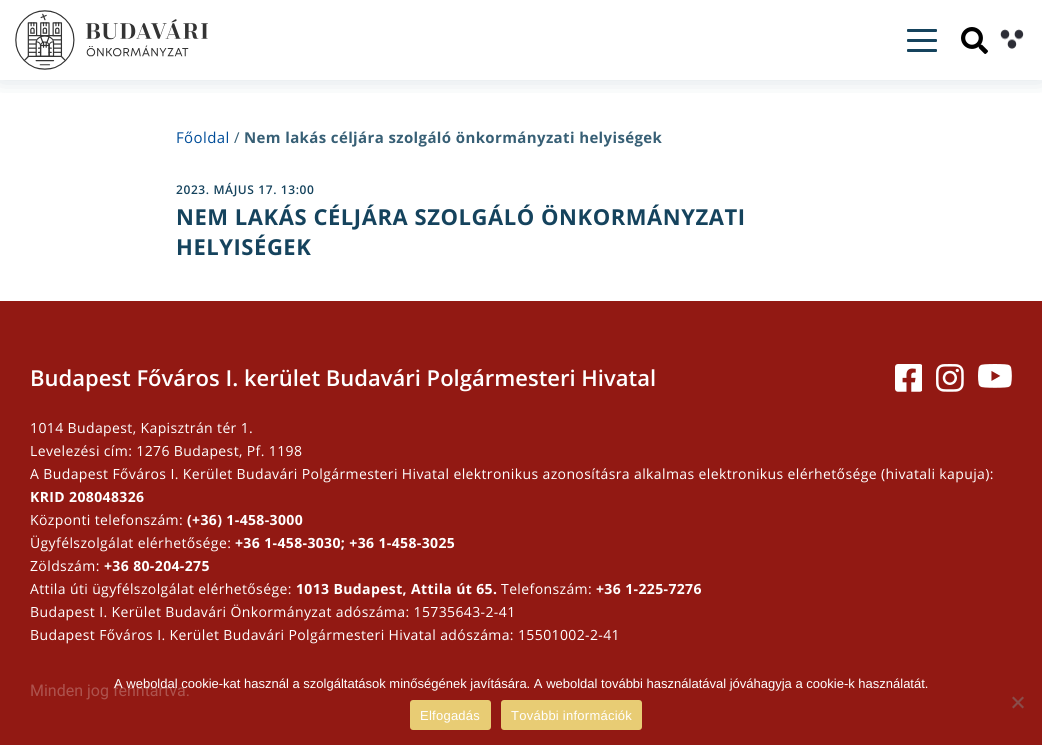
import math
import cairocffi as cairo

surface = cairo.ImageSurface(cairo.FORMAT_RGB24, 1042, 745)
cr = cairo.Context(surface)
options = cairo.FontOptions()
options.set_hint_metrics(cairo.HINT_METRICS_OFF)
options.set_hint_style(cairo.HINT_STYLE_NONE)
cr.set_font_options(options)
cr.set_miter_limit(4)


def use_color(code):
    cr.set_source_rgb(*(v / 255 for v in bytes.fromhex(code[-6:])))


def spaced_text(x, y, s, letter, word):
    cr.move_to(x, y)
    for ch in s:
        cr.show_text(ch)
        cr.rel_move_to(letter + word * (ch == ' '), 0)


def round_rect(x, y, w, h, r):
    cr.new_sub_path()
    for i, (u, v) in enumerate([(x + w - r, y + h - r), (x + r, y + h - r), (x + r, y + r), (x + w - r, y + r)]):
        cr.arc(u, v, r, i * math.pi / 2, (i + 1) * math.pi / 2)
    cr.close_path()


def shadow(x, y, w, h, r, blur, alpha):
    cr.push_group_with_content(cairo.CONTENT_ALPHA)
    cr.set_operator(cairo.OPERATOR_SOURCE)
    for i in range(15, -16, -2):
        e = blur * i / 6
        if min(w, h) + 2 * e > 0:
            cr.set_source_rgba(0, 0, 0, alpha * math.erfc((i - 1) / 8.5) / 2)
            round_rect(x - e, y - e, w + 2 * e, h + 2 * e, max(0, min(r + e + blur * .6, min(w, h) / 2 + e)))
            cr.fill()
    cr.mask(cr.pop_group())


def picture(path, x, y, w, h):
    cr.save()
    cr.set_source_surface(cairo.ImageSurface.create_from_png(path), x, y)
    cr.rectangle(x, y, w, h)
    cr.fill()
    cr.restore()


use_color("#ffffff")
cr.paint()
cr.save()
cr.rectangle(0, 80, 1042, 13)
cr.clip()
use_color("#15435d")
shadow(0, -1, 1042, 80, 0, 12, 0.17)
cr.restore()
picture("img1.png", 15, 10, 193, 60)
use_color("#15435d")
round_rect(907, 29, 30, 3, 1)
cr.fill()
round_rect(907, 39, 30, 3, 1)
cr.fill()
round_rect(907, 49, 30, 3, 1)
cr.fill()
picture("img2.png", 961, 27, 27, 27)
picture("img3.png", 1000, 29, 24, 20)
cr.select_font_face("Open Sans")
cr.set_font_size(15)
use_color("#004d99")
spaced_text(176, 143, "Főoldal", 0.38, 0)
use_color("#375f75")
spaced_text(234, 143, "/", 0.38, 0)
cr.select_font_face("Open Sans", cairo.FONT_SLANT_NORMAL, cairo.FONT_WEIGHT_BOLD)
spaced_text(244, 143, "Nem lakás céljára szolgáló önkormányzati helyiségek", 0.38, 0)
cr.select_font_face("Open Sans SemiBold")
cr.set_font_size(12)
use_color("#15435d")
spaced_text(176, 194, "2023. MÁJUS 17. 13:00", 0.6, 0)
cr.select_font_face("Open Sans", cairo.FONT_SLANT_NORMAL, cairo.FONT_WEIGHT_BOLD)
cr.set_font_size(22)
spaced_text(176, 225, "NEM LAKÁS CÉLJÁRA SZOLGÁLÓ ÖNKORMÁNYZATI", 0.55, 0)
spaced_text(176, 255, "HELYISÉGEK", 0.55, 0)
use_color("#921913")
cr.rectangle(0, 301, 1042, 444)
cr.fill()
cr.select_font_face("Open Sans SemiBold")
use_color("#ffffff")
cr.move_to(30, 386)
cr.show_text("Budapest Főváros I. kerület Budavári Polgármesteri Hivatal")
picture("img4.png", 895, 364, 27, 28)
picture("img5.png", 936, 364, 28, 28)
picture("img6.png", 978, 364, 34, 24)
cr.select_font_face("Open Sans")
cr.set_font_size(14)
spaced_text(30, 433, "1014 Budapest, Kapisztrán tér 1.", 0.38, 0)
spaced_text(30, 456, "Levelezési cím: 1276 Budapest, Pf. 1198", 0.38, 0)
spaced_text(30, 479, "A Budapest Főváros I. Kerület Budavári Polgármesteri Hivatal elektronikus azonosításra alkalmas elektronikus elérhetősége (hivatali kapuja):", 0.38, 0)
cr.select_font_face("Open Sans", cairo.FONT_SLANT_NORMAL, cairo.FONT_WEIGHT_BOLD)
spaced_text(30, 502, "KRID 208048326", 0.38, 0)
cr.select_font_face("Open Sans")
spaced_text(30, 525, "Központi telefonszám:", 0.38, 0)
cr.select_font_face("Open Sans", cairo.FONT_SLANT_NORMAL, cairo.FONT_WEIGHT_BOLD)
spaced_text(187, 525, "(+36) 1-458-3000", 0.38, 0)
cr.select_font_face("Open Sans")
spaced_text(30, 548, "Ügyfélszolgálat elérhetősége:", 0.38, 0)
cr.select_font_face("Open Sans", cairo.FONT_SLANT_NORMAL, cairo.FONT_WEIGHT_BOLD)
spaced_text(235, 548, "+36 1-458-3030; +36 1-458-3025", 0.38, 0)
cr.select_font_face("Open Sans")
spaced_text(30, 571, "Zöldszám:", 0.38, 0)
cr.select_font_face("Open Sans", cairo.FONT_SLANT_NORMAL, cairo.FONT_WEIGHT_BOLD)
spaced_text(104, 571, "+36 80-204-275", 0.38, 0)
cr.select_font_face("Open Sans")
spaced_text(30, 594, "Attila úti ügyfélszolgálat elérhetősége:", 0.38, 0)
cr.select_font_face("Open Sans", cairo.FONT_SLANT_NORMAL, cairo.FONT_WEIGHT_BOLD)
spaced_text(296, 594, "1013 Budapest, Attila út 65.", 0.38, 0)
cr.select_font_face("Open Sans")
spaced_text(501, 594, "Telefonszám:", 0.38, 0)
cr.select_font_face("Open Sans", cairo.FONT_SLANT_NORMAL, cairo.FONT_WEIGHT_BOLD)
spaced_text(596, 594, "+36 1-225-7276", 0.38, 0)
cr.select_font_face("Open Sans")
spaced_text(30, 617, "Budapest I. Kerület Budavári Önkormányzat adószáma: 15735643-2-41", 0.38, 0)
spaced_text(30, 640, "Budapest Főváros I. Kerület Budavári Polgármesteri Hivatal adószáma: 15501002-2-41", 0.38, 0)
cr.select_font_face("Roboto")
cr.set_font_size(16)
use_color("#ad534e")
cr.move_to(30, 696)
cr.show_text("Minden jog fenntartva.")
cr.select_font_face("Liberation Sans")
cr.set_font_size(13)
use_color("#ffffff")
cr.move_to(114, 688)
cr.show_text("A weboldal cookie-kat használ a szolgáltatások minőségének javítására. A weboldal további használatával jóváhagyja a cookie-k használatát.")
use_color("#894d4a")
cr.new_path()
cr.move_to(1022.5, 696.5)
cr.line_to(1024, 698)
cr.line_to(1013.5, 708.5)
cr.line_to(1012, 707)
cr.close_path()
cr.fill()
cr.new_path()
cr.move_to(1012, 698)
cr.line_to(1013.5, 696.5)
cr.line_to(1024, 707)
cr.line_to(1022.5, 708.5)
cr.close_path()
cr.fill()
use_color("#e8cc74")
round_rect(410, 700, 81, 30, 3)
cr.fill()
use_color("#ffffff")
spaced_text(420, 720, "Elfogadás", 0.25, 0)
use_color("#e8cc74")
round_rect(501, 700, 141, 30, 3)
cr.fill()
use_color("#ffffff")
spaced_text(511, 720, "További információk", 0.25, 0)
surface.write_to_png("result.png")
